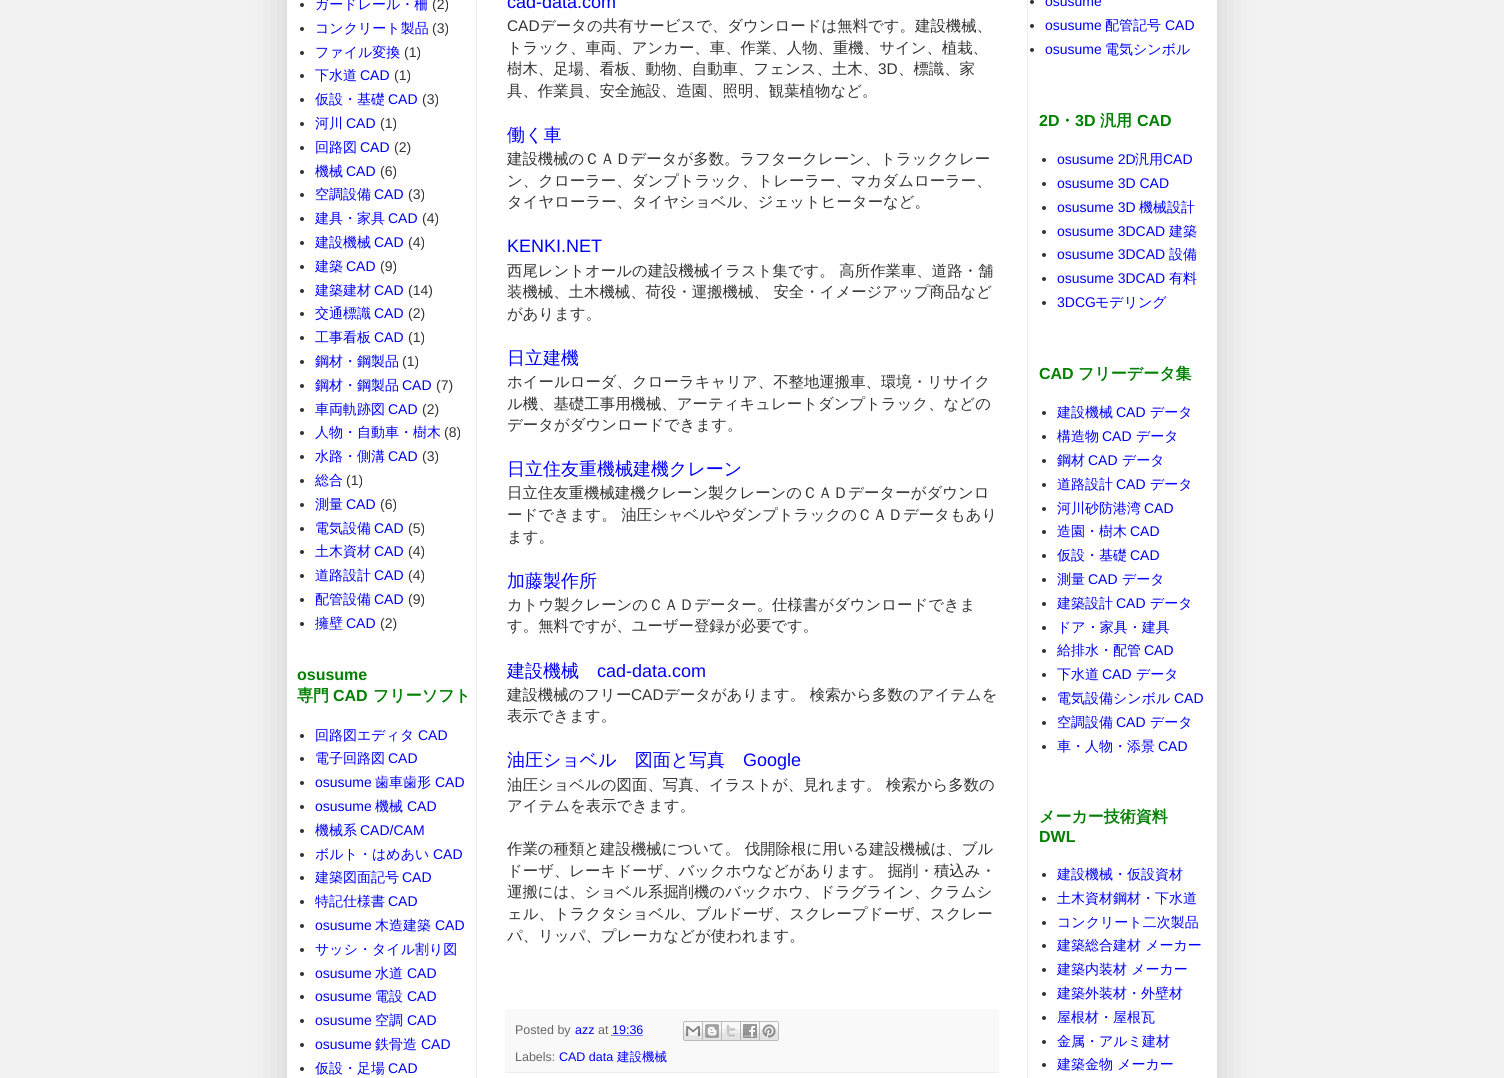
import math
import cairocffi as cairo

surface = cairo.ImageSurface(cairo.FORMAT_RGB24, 1504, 1078)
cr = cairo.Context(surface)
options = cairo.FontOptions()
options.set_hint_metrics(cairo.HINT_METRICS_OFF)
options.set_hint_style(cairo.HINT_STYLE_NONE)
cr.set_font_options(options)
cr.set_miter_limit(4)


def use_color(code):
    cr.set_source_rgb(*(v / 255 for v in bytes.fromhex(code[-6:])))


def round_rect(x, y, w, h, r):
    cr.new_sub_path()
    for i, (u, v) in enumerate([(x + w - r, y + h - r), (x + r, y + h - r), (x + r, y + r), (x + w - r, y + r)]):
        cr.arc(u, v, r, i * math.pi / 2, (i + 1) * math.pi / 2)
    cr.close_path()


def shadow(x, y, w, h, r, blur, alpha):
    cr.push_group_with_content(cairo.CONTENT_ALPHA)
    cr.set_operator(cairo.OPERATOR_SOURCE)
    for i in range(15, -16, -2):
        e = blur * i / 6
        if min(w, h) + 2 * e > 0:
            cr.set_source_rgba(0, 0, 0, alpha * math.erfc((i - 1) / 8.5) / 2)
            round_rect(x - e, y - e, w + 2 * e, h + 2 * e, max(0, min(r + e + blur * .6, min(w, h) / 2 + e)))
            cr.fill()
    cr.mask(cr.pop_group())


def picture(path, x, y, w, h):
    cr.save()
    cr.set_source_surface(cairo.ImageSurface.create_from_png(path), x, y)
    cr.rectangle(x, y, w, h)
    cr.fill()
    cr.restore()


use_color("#f2f2f2")
cr.paint()
use_color("#000000")
shadow(287, -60, 930, 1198, 0, 20, 0.15)
use_color("#ffffff")
cr.rectangle(287, 0, 930, 1078)
cr.fill()
use_color("#333333")
cr.arc(302, 5, 2, 0, 2 * math.pi)
cr.fill()
cr.select_font_face("WenQuanYi Zen Hei Medium")
cr.set_font_size(14)
use_color("#0000ff")
cr.move_to(315, 9)
cr.show_text("ガードレール・柵")
cr.select_font_face("Liberation Sans")
use_color("#333333")
cr.move_to(432, 9)
cr.show_text("(2)")
cr.new_path()
cr.arc(302, 29, 2, 0, 2 * math.pi)
cr.fill()
cr.select_font_face("WenQuanYi Zen Hei Medium")
use_color("#0000ff")
cr.move_to(315, 33)
cr.show_text("コンクリート製品")
cr.select_font_face("Liberation Sans")
use_color("#333333")
cr.move_to(432, 33)
cr.show_text("(3)")
cr.new_path()
cr.arc(302, 53, 2, 0, 2 * math.pi)
cr.fill()
cr.select_font_face("WenQuanYi Zen Hei Medium")
use_color("#0000ff")
cr.move_to(315, 57)
cr.show_text("ファイル変換")
cr.select_font_face("Liberation Sans")
use_color("#333333")
cr.move_to(404, 57)
cr.show_text("(1)")
cr.new_path()
cr.arc(302, 76, 2, 0, 2 * math.pi)
cr.fill()
cr.select_font_face("WenQuanYi Zen Hei Medium")
use_color("#0000ff")
cr.move_to(315, 80)
cr.show_text("下水道")
cr.select_font_face("Liberation Sans")
cr.move_to(360, 80)
cr.show_text("CAD")
use_color("#333333")
cr.move_to(394, 80)
cr.show_text("(1)")
cr.new_path()
cr.arc(302, 100, 2, 0, 2 * math.pi)
cr.fill()
cr.select_font_face("WenQuanYi Zen Hei Medium")
use_color("#0000ff")
cr.move_to(315, 104)
cr.show_text("仮設・基礎")
cr.select_font_face("Liberation Sans")
cr.move_to(388, 104)
cr.show_text("CAD")
use_color("#333333")
cr.move_to(422, 104)
cr.show_text("(3)")
cr.new_path()
cr.arc(302, 124, 2, 0, 2 * math.pi)
cr.fill()
cr.select_font_face("WenQuanYi Zen Hei Medium")
use_color("#0000ff")
cr.move_to(315, 128)
cr.show_text("河川")
cr.select_font_face("Liberation Sans")
cr.move_to(346, 128)
cr.show_text("CAD")
use_color("#333333")
cr.move_to(380, 128)
cr.show_text("(1)")
cr.new_path()
cr.arc(302, 148, 2, 0, 2 * math.pi)
cr.fill()
cr.select_font_face("WenQuanYi Zen Hei Medium")
use_color("#0000ff")
cr.move_to(315, 152)
cr.show_text("回路図")
cr.select_font_face("Liberation Sans")
cr.move_to(360, 152)
cr.show_text("CAD")
use_color("#333333")
cr.move_to(394, 152)
cr.show_text("(2)")
cr.new_path()
cr.arc(302, 172, 2, 0, 2 * math.pi)
cr.fill()
cr.select_font_face("WenQuanYi Zen Hei Medium")
use_color("#0000ff")
cr.move_to(315, 176)
cr.show_text("機械")
cr.select_font_face("Liberation Sans")
cr.move_to(346, 176)
cr.show_text("CAD")
use_color("#333333")
cr.move_to(380, 176)
cr.show_text("(6)")
cr.new_path()
cr.arc(302, 195, 2, 0, 2 * math.pi)
cr.fill()
cr.select_font_face("WenQuanYi Zen Hei Medium")
use_color("#0000ff")
cr.move_to(315, 199)
cr.show_text("空調設備")
cr.select_font_face("Liberation Sans")
cr.move_to(374, 199)
cr.show_text("CAD")
use_color("#333333")
cr.move_to(408, 199)
cr.show_text("(3)")
cr.new_path()
cr.arc(302, 219, 2, 0, 2 * math.pi)
cr.fill()
cr.select_font_face("WenQuanYi Zen Hei Medium")
use_color("#0000ff")
cr.move_to(315, 223)
cr.show_text("建具・家具")
cr.select_font_face("Liberation Sans")
cr.move_to(388, 223)
cr.show_text("CAD")
use_color("#333333")
cr.move_to(422, 223)
cr.show_text("(4)")
cr.new_path()
cr.arc(302, 243, 2, 0, 2 * math.pi)
cr.fill()
cr.select_font_face("WenQuanYi Zen Hei Medium")
use_color("#0000ff")
cr.move_to(315, 247)
cr.show_text("建設機械")
cr.select_font_face("Liberation Sans")
cr.move_to(374, 247)
cr.show_text("CAD")
use_color("#333333")
cr.move_to(408, 247)
cr.show_text("(4)")
cr.new_path()
cr.arc(302, 267, 2, 0, 2 * math.pi)
cr.fill()
cr.select_font_face("WenQuanYi Zen Hei Medium")
use_color("#0000ff")
cr.move_to(315, 271)
cr.show_text("建築")
cr.select_font_face("Liberation Sans")
cr.move_to(346, 271)
cr.show_text("CAD")
use_color("#333333")
cr.move_to(380, 271)
cr.show_text("(9)")
cr.new_path()
cr.arc(302, 291, 2, 0, 2 * math.pi)
cr.fill()
cr.select_font_face("WenQuanYi Zen Hei Medium")
use_color("#0000ff")
cr.move_to(315, 295)
cr.show_text("建築建材")
cr.select_font_face("Liberation Sans")
cr.move_to(374, 295)
cr.show_text("CAD")
use_color("#333333")
cr.move_to(408, 295)
cr.show_text("(14)")
cr.new_path()
cr.arc(302, 314, 2, 0, 2 * math.pi)
cr.fill()
cr.select_font_face("WenQuanYi Zen Hei Medium")
use_color("#0000ff")
cr.move_to(315, 318)
cr.show_text("交通標識")
cr.select_font_face("Liberation Sans")
cr.move_to(374, 318)
cr.show_text("CAD")
use_color("#333333")
cr.move_to(408, 318)
cr.show_text("(2)")
cr.new_path()
cr.arc(302, 338, 2, 0, 2 * math.pi)
cr.fill()
cr.select_font_face("WenQuanYi Zen Hei Medium")
use_color("#0000ff")
cr.move_to(315, 342)
cr.show_text("工事看板")
cr.select_font_face("Liberation Sans")
cr.move_to(374, 342)
cr.show_text("CAD")
use_color("#333333")
cr.move_to(408, 342)
cr.show_text("(1)")
cr.new_path()
cr.arc(302, 362, 2, 0, 2 * math.pi)
cr.fill()
cr.select_font_face("WenQuanYi Zen Hei Medium")
use_color("#0000ff")
cr.move_to(315, 366)
cr.show_text("鋼材・鋼製品")
cr.select_font_face("Liberation Sans")
use_color("#333333")
cr.move_to(402, 366)
cr.show_text("(1)")
cr.new_path()
cr.arc(302, 386, 2, 0, 2 * math.pi)
cr.fill()
cr.select_font_face("WenQuanYi Zen Hei Medium")
use_color("#0000ff")
cr.move_to(315, 390)
cr.show_text("鋼材・鋼製品")
cr.select_font_face("Liberation Sans")
cr.move_to(402, 390)
cr.show_text("CAD")
use_color("#333333")
cr.move_to(436, 390)
cr.show_text("(7)")
cr.new_path()
cr.arc(302, 410, 2, 0, 2 * math.pi)
cr.fill()
cr.select_font_face("WenQuanYi Zen Hei Medium")
use_color("#0000ff")
cr.move_to(315, 414)
cr.show_text("車両軌跡図")
cr.select_font_face("Liberation Sans")
cr.move_to(388, 414)
cr.show_text("CAD")
use_color("#333333")
cr.move_to(422, 414)
cr.show_text("(2)")
cr.new_path()
cr.arc(302, 433, 2, 0, 2 * math.pi)
cr.fill()
cr.select_font_face("WenQuanYi Zen Hei Medium")
use_color("#0000ff")
cr.move_to(315, 437)
cr.show_text("人物・自動車・樹木")
cr.select_font_face("Liberation Sans")
use_color("#333333")
cr.move_to(444, 437)
cr.show_text("(8)")
cr.new_path()
cr.arc(302, 457, 2, 0, 2 * math.pi)
cr.fill()
cr.select_font_face("WenQuanYi Zen Hei Medium")
use_color("#0000ff")
cr.move_to(315, 461)
cr.show_text("水路・側溝")
cr.select_font_face("Liberation Sans")
cr.move_to(388, 461)
cr.show_text("CAD")
use_color("#333333")
cr.move_to(422, 461)
cr.show_text("(3)")
cr.new_path()
cr.arc(302, 481, 2, 0, 2 * math.pi)
cr.fill()
cr.select_font_face("WenQuanYi Zen Hei Medium")
use_color("#0000ff")
cr.move_to(315, 485)
cr.show_text("総合")
cr.select_font_face("Liberation Sans")
use_color("#333333")
cr.move_to(346, 485)
cr.show_text("(1)")
cr.new_path()
cr.arc(302, 505, 2, 0, 2 * math.pi)
cr.fill()
cr.select_font_face("WenQuanYi Zen Hei Medium")
use_color("#0000ff")
cr.move_to(315, 509)
cr.show_text("測量")
cr.select_font_face("Liberation Sans")
cr.move_to(346, 509)
cr.show_text("CAD")
use_color("#333333")
cr.move_to(380, 509)
cr.show_text("(6)")
cr.new_path()
cr.arc(302, 529, 2, 0, 2 * math.pi)
cr.fill()
cr.select_font_face("WenQuanYi Zen Hei Medium")
use_color("#0000ff")
cr.move_to(315, 533)
cr.show_text("電気設備")
cr.select_font_face("Liberation Sans")
cr.move_to(374, 533)
cr.show_text("CAD")
use_color("#333333")
cr.move_to(408, 533)
cr.show_text("(5)")
cr.new_path()
cr.arc(302, 552, 2, 0, 2 * math.pi)
cr.fill()
cr.select_font_face("WenQuanYi Zen Hei Medium")
use_color("#0000ff")
cr.move_to(315, 556)
cr.show_text("土木資材")
cr.select_font_face("Liberation Sans")
cr.move_to(374, 556)
cr.show_text("CAD")
use_color("#333333")
cr.move_to(408, 556)
cr.show_text("(4)")
cr.new_path()
cr.arc(302, 576, 2, 0, 2 * math.pi)
cr.fill()
cr.select_font_face("WenQuanYi Zen Hei Medium")
use_color("#0000ff")
cr.move_to(315, 580)
cr.show_text("道路設計")
cr.select_font_face("Liberation Sans")
cr.move_to(374, 580)
cr.show_text("CAD")
use_color("#333333")
cr.move_to(408, 580)
cr.show_text("(4)")
cr.new_path()
cr.arc(302, 600, 2, 0, 2 * math.pi)
cr.fill()
cr.select_font_face("WenQuanYi Zen Hei Medium")
use_color("#0000ff")
cr.move_to(315, 604)
cr.show_text("配管設備")
cr.select_font_face("Liberation Sans")
cr.move_to(374, 604)
cr.show_text("CAD")
use_color("#333333")
cr.move_to(408, 604)
cr.show_text("(9)")
cr.new_path()
cr.arc(302, 624, 2, 0, 2 * math.pi)
cr.fill()
cr.select_font_face("WenQuanYi Zen Hei Medium")
use_color("#0000ff")
cr.move_to(315, 628)
cr.show_text("擁壁")
cr.select_font_face("Liberation Sans")
cr.move_to(346, 628)
cr.show_text("CAD")
use_color("#333333")
cr.move_to(380, 628)
cr.show_text("(2)")
cr.select_font_face("Liberation Sans", cairo.FONT_SLANT_NORMAL, cairo.FONT_WEIGHT_BOLD)
cr.set_font_size(16)
use_color("#008000")
cr.move_to(297, 680)
cr.show_text("osusume")
cr.select_font_face("WenQuanYi Zen Hei", cairo.FONT_SLANT_NORMAL, cairo.FONT_WEIGHT_BOLD)
cr.move_to(297, 701)
cr.show_text("専門")
cr.select_font_face("Liberation Sans", cairo.FONT_SLANT_NORMAL, cairo.FONT_WEIGHT_BOLD)
cr.move_to(333, 701)
cr.show_text("CAD")
cr.select_font_face("WenQuanYi Zen Hei", cairo.FONT_SLANT_NORMAL, cairo.FONT_WEIGHT_BOLD)
cr.move_to(373, 701)
cr.show_text("フリーソフト")
use_color("#333333")
cr.new_path()
cr.arc(302, 736, 2, 0, 2 * math.pi)
cr.fill()
cr.select_font_face("WenQuanYi Zen Hei Medium")
cr.set_font_size(14)
use_color("#0000ff")
cr.move_to(315, 740)
cr.show_text("回路図エディタ")
cr.select_font_face("Liberation Sans")
cr.move_to(418, 740)
cr.show_text("CAD")
use_color("#333333")
cr.new_path()
cr.arc(302, 759, 2, 0, 2 * math.pi)
cr.fill()
cr.select_font_face("WenQuanYi Zen Hei Medium")
use_color("#0000ff")
cr.move_to(315, 763)
cr.show_text("電子回路図")
cr.select_font_face("Liberation Sans")
cr.move_to(388, 763)
cr.show_text("CAD")
use_color("#333333")
cr.new_path()
cr.arc(302, 783, 2, 0, 2 * math.pi)
cr.fill()
use_color("#0000ff")
cr.move_to(315, 787)
cr.show_text("osusume")
cr.select_font_face("WenQuanYi Zen Hei Medium")
cr.move_to(375, 787)
cr.show_text("歯車歯形")
cr.select_font_face("Liberation Sans")
cr.move_to(435, 787)
cr.show_text("CAD")
use_color("#333333")
cr.new_path()
cr.arc(302, 807, 2, 0, 2 * math.pi)
cr.fill()
use_color("#0000ff")
cr.move_to(315, 811)
cr.show_text("osusume")
cr.select_font_face("WenQuanYi Zen Hei Medium")
cr.move_to(375, 811)
cr.show_text("機械")
cr.select_font_face("Liberation Sans")
cr.move_to(407, 811)
cr.show_text("CAD")
use_color("#333333")
cr.new_path()
cr.arc(302, 831, 2, 0, 2 * math.pi)
cr.fill()
cr.select_font_face("WenQuanYi Zen Hei Medium")
use_color("#0000ff")
cr.move_to(315, 835)
cr.show_text("機械系")
cr.select_font_face("Liberation Sans")
cr.move_to(360, 835)
cr.show_text("CAD/CAM")
use_color("#333333")
cr.new_path()
cr.arc(302, 855, 2, 0, 2 * math.pi)
cr.fill()
cr.select_font_face("WenQuanYi Zen Hei Medium")
use_color("#0000ff")
cr.move_to(315, 859)
cr.show_text("ボルト・はめあい")
cr.select_font_face("Liberation Sans")
cr.move_to(433, 859)
cr.show_text("CAD")
use_color("#333333")
cr.new_path()
cr.arc(302, 878, 2, 0, 2 * math.pi)
cr.fill()
cr.select_font_face("WenQuanYi Zen Hei Medium")
use_color("#0000ff")
cr.move_to(315, 882)
cr.show_text("建築図面記号")
cr.select_font_face("Liberation Sans")
cr.move_to(402, 882)
cr.show_text("CAD")
use_color("#333333")
cr.new_path()
cr.arc(302, 902, 2, 0, 2 * math.pi)
cr.fill()
cr.select_font_face("WenQuanYi Zen Hei Medium")
use_color("#0000ff")
cr.move_to(315, 906)
cr.show_text("特記仕様書")
cr.select_font_face("Liberation Sans")
cr.move_to(388, 906)
cr.show_text("CAD")
use_color("#333333")
cr.new_path()
cr.arc(302, 926, 2, 0, 2 * math.pi)
cr.fill()
use_color("#0000ff")
cr.move_to(315, 930)
cr.show_text("osusume")
cr.select_font_face("WenQuanYi Zen Hei Medium")
cr.move_to(375, 930)
cr.show_text("木造建築")
cr.select_font_face("Liberation Sans")
cr.move_to(435, 930)
cr.show_text("CAD")
use_color("#333333")
cr.new_path()
cr.arc(302, 950, 2, 0, 2 * math.pi)
cr.fill()
cr.select_font_face("WenQuanYi Zen Hei Medium")
use_color("#0000ff")
cr.move_to(315, 954)
cr.show_text("サッシ・タイル割り図")
use_color("#333333")
cr.new_path()
cr.arc(302, 974, 2, 0, 2 * math.pi)
cr.fill()
cr.select_font_face("Liberation Sans")
use_color("#0000ff")
cr.move_to(315, 978)
cr.show_text("osusume")
cr.select_font_face("WenQuanYi Zen Hei Medium")
cr.move_to(375, 978)
cr.show_text("水道")
cr.select_font_face("Liberation Sans")
cr.move_to(407, 978)
cr.show_text("CAD")
use_color("#333333")
cr.new_path()
cr.arc(302, 997, 2, 0, 2 * math.pi)
cr.fill()
use_color("#0000ff")
cr.move_to(315, 1001)
cr.show_text("osusume")
cr.select_font_face("WenQuanYi Zen Hei Medium")
cr.move_to(375, 1001)
cr.show_text("電設")
cr.select_font_face("Liberation Sans")
cr.move_to(407, 1001)
cr.show_text("CAD")
use_color("#333333")
cr.new_path()
cr.arc(302, 1021, 2, 0, 2 * math.pi)
cr.fill()
use_color("#0000ff")
cr.move_to(315, 1025)
cr.show_text("osusume")
cr.select_font_face("WenQuanYi Zen Hei Medium")
cr.move_to(375, 1025)
cr.show_text("空調")
cr.select_font_face("Liberation Sans")
cr.move_to(407, 1025)
cr.show_text("CAD")
use_color("#333333")
cr.new_path()
cr.arc(302, 1045, 2, 0, 2 * math.pi)
cr.fill()
use_color("#0000ff")
cr.move_to(315, 1049)
cr.show_text("osusume")
cr.select_font_face("WenQuanYi Zen Hei Medium")
cr.move_to(375, 1049)
cr.show_text("鉄骨造")
cr.select_font_face("Liberation Sans")
cr.move_to(421, 1049)
cr.show_text("CAD")
use_color("#333333")
cr.new_path()
cr.arc(302, 1069, 2, 0, 2 * math.pi)
cr.fill()
cr.select_font_face("WenQuanYi Zen Hei Medium")
use_color("#0000ff")
cr.move_to(315, 1073)
cr.show_text("仮設・足場")
cr.select_font_face("Liberation Sans")
cr.move_to(388, 1073)
cr.show_text("CAD")
cr.set_font_size(18)
cr.move_to(507, 8)
cr.show_text("cad-data.com")
cr.set_font_size(15.4)
use_color("#333333")
cr.move_to(507, 31)
cr.show_text("CAD")
cr.select_font_face("WenQuanYi Zen Hei Medium")
cr.move_to(540, 31)
cr.show_text("データの共有サービスで、ダウンロードは無料です。建設機械、")
cr.move_to(507, 53)
cr.show_text("トラック、車両、アンカー、車、作業、人物、重機、サイン、植栽、")
cr.move_to(507, 74)
cr.show_text("樹木、足場、看板、動物、自動車、フェンス、土木、")
cr.select_font_face("Liberation Sans")
cr.move_to(878, 74)
cr.show_text("3D")
cr.select_font_face("WenQuanYi Zen Hei Medium")
cr.move_to(898, 74)
cr.show_text("、標識、家")
cr.move_to(507, 96)
cr.show_text("具、作業員、安全施設、造園、照明、観葉植物など。")
cr.set_font_size(18)
use_color("#0000ff")
cr.move_to(507, 141)
cr.show_text("働く車")
cr.set_font_size(15.4)
use_color("#333333")
cr.move_to(507, 164)
cr.show_text("建設機械のＣＡＤデータが多数。ラフタークレーン、トラッククレー")
cr.move_to(507, 186)
cr.show_text("ン、クローラー、ダンプトラック、トレーラー、マカダムローラー、")
cr.move_to(507, 207)
cr.show_text("タイヤローラー、タイヤショベル、ジェットヒーターなど。")
cr.select_font_face("Liberation Sans")
cr.set_font_size(18)
use_color("#0000ff")
cr.move_to(507, 252)
cr.show_text("KENKI.NET")
cr.select_font_face("WenQuanYi Zen Hei Medium")
cr.set_font_size(15.4)
use_color("#333333")
cr.move_to(507, 276)
cr.show_text("西尾レントオールの建設機械イラスト集です。 高所作業車、道路・舗")
cr.move_to(507, 297)
cr.show_text("装機械、土木機械、荷役・運搬機械、 安全・イメージアップ商品など")
cr.move_to(507, 319)
cr.show_text("があります。")
cr.set_font_size(18)
use_color("#0000ff")
cr.move_to(507, 364)
cr.show_text("日立建機")
cr.set_font_size(15.4)
use_color("#333333")
cr.move_to(507, 387)
cr.show_text("ホイールローダ、クローラキャリア、不整地運搬車、環境・リサイク")
cr.move_to(507, 409)
cr.show_text("ル機、基礎工事用機械、アーティキュレートダンプトラック、などの")
cr.move_to(507, 430)
cr.show_text("データがダウンロードできます。")
cr.set_font_size(18)
use_color("#0000ff")
cr.move_to(507, 475)
cr.show_text("日立住友重機械建機クレーン")
cr.set_font_size(15.4)
use_color("#333333")
cr.move_to(507, 498)
cr.show_text("日立住友重機械建機クレーン製クレーンのＣＡＤデーターがダウンロ")
cr.move_to(507, 520)
cr.show_text("ードできます。 油圧シャベルやダンプトラックのＣＡＤデータもあり")
cr.move_to(507, 542)
cr.show_text("ます。")
cr.set_font_size(18)
use_color("#0000ff")
cr.move_to(507, 587)
cr.show_text("加藤製作所")
cr.set_font_size(15.4)
use_color("#333333")
cr.move_to(507, 610)
cr.show_text("カトウ製クレーンのＣＡＤデーター。仕様書がダウンロードできま")
cr.move_to(507, 631)
cr.show_text("す。無料ですが、ユーザー登録が必要です。")
cr.set_font_size(18)
use_color("#0000ff")
cr.move_to(507, 677)
cr.show_text("建設機械")
cr.select_font_face("Liberation Sans")
cr.move_to(597, 677)
cr.show_text("cad-data.com")
cr.select_font_face("WenQuanYi Zen Hei Medium")
cr.set_font_size(15.4)
use_color("#333333")
cr.move_to(507, 700)
cr.show_text("建設機械のフリー")
cr.select_font_face("Liberation Sans")
cr.move_to(631, 700)
cr.show_text("CAD")
cr.select_font_face("WenQuanYi Zen Hei Medium")
cr.move_to(664, 700)
cr.show_text("データがあります。 検索から多数のアイテムを")
cr.move_to(507, 721)
cr.show_text("表示できます。")
cr.set_font_size(18)
use_color("#0000ff")
cr.move_to(507, 766)
cr.show_text("油圧ショベル　図面と写真")
cr.select_font_face("Liberation Sans")
cr.move_to(743, 766)
cr.show_text("Google")
cr.select_font_face("WenQuanYi Zen Hei Medium")
cr.set_font_size(15.4)
use_color("#333333")
cr.move_to(507, 790)
cr.show_text("油圧ショベルの図面、写真、イラストが、見れます。 検索から多数の")
cr.move_to(507, 811)
cr.show_text("アイテムを表示できます。")
cr.move_to(507, 854)
cr.show_text("作業の種類と建設機械について。 伐開除根に用いる建設機械は、ブル")
cr.move_to(507, 876)
cr.show_text("ドーザ、レーキドーザ、バックホウなどがあります。 掘削・積込み・")
cr.move_to(507, 897)
cr.show_text("運搬には、ショベル系掘削機のバックホウ、ドラグライン、クラムシ")
cr.move_to(507, 919)
cr.show_text("ェル、トラクタショベル、ブルドーザ、スクレープドーザ、スクレー")
cr.move_to(507, 941)
cr.show_text("パ、リッパ、プレーカなどが使われます。")
use_color("#f9f9f9")
cr.rectangle(505, 1009, 494, 63)
cr.fill()
use_color("#eeeeee")
cr.rectangle(505, 1072, 494, 1)
cr.fill()
cr.select_font_face("Liberation Sans")
cr.set_font_size(12.5)
use_color("#666666")
cr.move_to(515, 1034)
cr.show_text("Posted by")
use_color("#0000ff")
cr.move_to(575, 1034)
cr.show_text("azz")
use_color("#666666")
cr.move_to(598, 1034)
cr.show_text("at")
use_color("#0000ff")
cr.move_to(612, 1034)
cr.show_text("19:36")
cr.new_path()
cr.move_to(611.5, 1035.5)
cr.line_to(643, 1035.5)
cr.set_line_width(1)
cr.set_dash([1, 1])
cr.stroke()
picture("img1.png", 683, 1021, 20, 20)
picture("img2.png", 703, 1021, 19, 20)
picture("img3.png", 722, 1021, 19, 20)
picture("img4.png", 741, 1021, 19, 20)
picture("img5.png", 760, 1021, 19, 20)
use_color("#666666")
cr.move_to(515, 1061)
cr.show_text("Labels:")
use_color("#0000ff")
cr.move_to(559, 1061)
cr.show_text("CAD data")
cr.select_font_face("WenQuanYi Zen Hei Medium")
cr.move_to(617, 1061)
cr.show_text("建設機械")
use_color("#333333")
cr.new_path()
cr.arc(1032, 2, 2, 0, 2 * math.pi)
cr.fill()
cr.select_font_face("Liberation Sans")
cr.set_font_size(14)
use_color("#0000ff")
cr.move_to(1045, 6)
cr.show_text("osusume")
use_color("#333333")
cr.new_path()
cr.arc(1032, 26, 2, 0, 2 * math.pi)
cr.fill()
use_color("#0000ff")
cr.move_to(1045, 30)
cr.show_text("osusume")
cr.select_font_face("WenQuanYi Zen Hei Medium")
cr.move_to(1105, 30)
cr.show_text("配管記号")
cr.select_font_face("Liberation Sans")
cr.move_to(1165, 30)
cr.show_text("CAD")
use_color("#333333")
cr.new_path()
cr.arc(1032, 50, 2, 0, 2 * math.pi)
cr.fill()
use_color("#0000ff")
cr.move_to(1045, 54)
cr.show_text("osusume")
cr.select_font_face("WenQuanYi Zen Hei Medium")
cr.move_to(1105, 54)
cr.show_text("電気シンボル")
cr.select_font_face("Liberation Sans", cairo.FONT_SLANT_NORMAL, cairo.FONT_WEIGHT_BOLD)
cr.set_font_size(16)
use_color("#008000")
cr.move_to(1039, 126)
cr.show_text("2D")
cr.select_font_face("WenQuanYi Zen Hei", cairo.FONT_SLANT_NORMAL, cairo.FONT_WEIGHT_BOLD)
cr.move_to(1059, 126)
cr.show_text("・")
cr.select_font_face("Liberation Sans", cairo.FONT_SLANT_NORMAL, cairo.FONT_WEIGHT_BOLD)
cr.move_to(1075, 126)
cr.show_text("3D")
cr.select_font_face("WenQuanYi Zen Hei", cairo.FONT_SLANT_NORMAL, cairo.FONT_WEIGHT_BOLD)
cr.move_to(1100, 126)
cr.show_text("汎用")
cr.select_font_face("Liberation Sans", cairo.FONT_SLANT_NORMAL, cairo.FONT_WEIGHT_BOLD)
cr.move_to(1137, 126)
cr.show_text("CAD")
use_color("#333333")
cr.new_path()
cr.arc(1044, 160, 2, 0, 2 * math.pi)
cr.fill()
cr.select_font_face("Liberation Sans")
cr.set_font_size(14)
use_color("#0000ff")
cr.move_to(1057, 164)
cr.show_text("osusume 2D")
cr.select_font_face("WenQuanYi Zen Hei Medium")
cr.move_to(1135, 164)
cr.show_text("汎用")
cr.select_font_face("Liberation Sans")
cr.move_to(1163, 164)
cr.show_text("CAD")
use_color("#333333")
cr.new_path()
cr.arc(1044, 184, 2, 0, 2 * math.pi)
cr.fill()
use_color("#0000ff")
cr.move_to(1057, 188)
cr.show_text("osusume 3D CAD")
use_color("#333333")
cr.new_path()
cr.arc(1044, 208, 2, 0, 2 * math.pi)
cr.fill()
use_color("#0000ff")
cr.move_to(1057, 212)
cr.show_text("osusume 3D")
cr.select_font_face("WenQuanYi Zen Hei Medium")
cr.move_to(1139, 212)
cr.show_text("機械設計")
use_color("#333333")
cr.new_path()
cr.arc(1044, 232, 2, 0, 2 * math.pi)
cr.fill()
cr.select_font_face("Liberation Sans")
use_color("#0000ff")
cr.move_to(1057, 236)
cr.show_text("osusume 3DCAD")
cr.select_font_face("WenQuanYi Zen Hei Medium")
cr.move_to(1169, 236)
cr.show_text("建築")
use_color("#333333")
cr.new_path()
cr.arc(1044, 255, 2, 0, 2 * math.pi)
cr.fill()
cr.select_font_face("Liberation Sans")
use_color("#0000ff")
cr.move_to(1057, 259)
cr.show_text("osusume 3DCAD")
cr.select_font_face("WenQuanYi Zen Hei Medium")
cr.move_to(1169, 259)
cr.show_text("設備")
use_color("#333333")
cr.new_path()
cr.arc(1044, 279, 2, 0, 2 * math.pi)
cr.fill()
cr.select_font_face("Liberation Sans")
use_color("#0000ff")
cr.move_to(1057, 283)
cr.show_text("osusume 3DCAD")
cr.select_font_face("WenQuanYi Zen Hei Medium")
cr.move_to(1169, 283)
cr.show_text("有料")
use_color("#333333")
cr.new_path()
cr.arc(1044, 303, 2, 0, 2 * math.pi)
cr.fill()
cr.select_font_face("Liberation Sans")
use_color("#0000ff")
cr.move_to(1057, 307)
cr.show_text("3DCG")
cr.select_font_face("WenQuanYi Zen Hei Medium")
cr.move_to(1095, 307)
cr.show_text("モデリング")
cr.select_font_face("Liberation Sans", cairo.FONT_SLANT_NORMAL, cairo.FONT_WEIGHT_BOLD)
cr.set_font_size(16)
use_color("#008000")
cr.move_to(1039, 379)
cr.show_text("CAD")
cr.select_font_face("WenQuanYi Zen Hei", cairo.FONT_SLANT_NORMAL, cairo.FONT_WEIGHT_BOLD)
cr.move_to(1078, 379)
cr.show_text("フリーデータ集")
use_color("#333333")
cr.new_path()
cr.arc(1044, 413, 2, 0, 2 * math.pi)
cr.fill()
cr.select_font_face("WenQuanYi Zen Hei Medium")
cr.set_font_size(14)
use_color("#0000ff")
cr.move_to(1057, 417)
cr.show_text("建設機械")
cr.select_font_face("Liberation Sans")
cr.move_to(1116, 417)
cr.show_text("CAD")
cr.select_font_face("WenQuanYi Zen Hei Medium")
cr.move_to(1150, 417)
cr.show_text("データ")
use_color("#333333")
cr.new_path()
cr.arc(1044, 437, 2, 0, 2 * math.pi)
cr.fill()
use_color("#0000ff")
cr.move_to(1057, 441)
cr.show_text("構造物")
cr.select_font_face("Liberation Sans")
cr.move_to(1102, 441)
cr.show_text("CAD")
cr.select_font_face("WenQuanYi Zen Hei Medium")
cr.move_to(1136, 441)
cr.show_text("データ")
use_color("#333333")
cr.new_path()
cr.arc(1044, 461, 2, 0, 2 * math.pi)
cr.fill()
use_color("#0000ff")
cr.move_to(1057, 465)
cr.show_text("鋼材")
cr.select_font_face("Liberation Sans")
cr.move_to(1088, 465)
cr.show_text("CAD")
cr.select_font_face("WenQuanYi Zen Hei Medium")
cr.move_to(1122, 465)
cr.show_text("データ")
use_color("#333333")
cr.new_path()
cr.arc(1044, 485, 2, 0, 2 * math.pi)
cr.fill()
use_color("#0000ff")
cr.move_to(1057, 489)
cr.show_text("道路設計")
cr.select_font_face("Liberation Sans")
cr.move_to(1116, 489)
cr.show_text("CAD")
cr.select_font_face("WenQuanYi Zen Hei Medium")
cr.move_to(1150, 489)
cr.show_text("データ")
use_color("#333333")
cr.new_path()
cr.arc(1044, 509, 2, 0, 2 * math.pi)
cr.fill()
use_color("#0000ff")
cr.move_to(1057, 513)
cr.show_text("河川砂防港湾")
cr.select_font_face("Liberation Sans")
cr.move_to(1144, 513)
cr.show_text("CAD")
use_color("#333333")
cr.new_path()
cr.arc(1044, 532, 2, 0, 2 * math.pi)
cr.fill()
cr.select_font_face("WenQuanYi Zen Hei Medium")
use_color("#0000ff")
cr.move_to(1057, 536)
cr.show_text("造園・樹木")
cr.select_font_face("Liberation Sans")
cr.move_to(1130, 536)
cr.show_text("CAD")
use_color("#333333")
cr.new_path()
cr.arc(1044, 556, 2, 0, 2 * math.pi)
cr.fill()
cr.select_font_face("WenQuanYi Zen Hei Medium")
use_color("#0000ff")
cr.move_to(1057, 560)
cr.show_text("仮設・基礎")
cr.select_font_face("Liberation Sans")
cr.move_to(1130, 560)
cr.show_text("CAD")
use_color("#333333")
cr.new_path()
cr.arc(1044, 580, 2, 0, 2 * math.pi)
cr.fill()
cr.select_font_face("WenQuanYi Zen Hei Medium")
use_color("#0000ff")
cr.move_to(1057, 584)
cr.show_text("測量")
cr.select_font_face("Liberation Sans")
cr.move_to(1088, 584)
cr.show_text("CAD")
cr.select_font_face("WenQuanYi Zen Hei Medium")
cr.move_to(1122, 584)
cr.show_text("データ")
use_color("#333333")
cr.new_path()
cr.arc(1044, 604, 2, 0, 2 * math.pi)
cr.fill()
use_color("#0000ff")
cr.move_to(1057, 608)
cr.show_text("建築設計")
cr.select_font_face("Liberation Sans")
cr.move_to(1116, 608)
cr.show_text("CAD")
cr.select_font_face("WenQuanYi Zen Hei Medium")
cr.move_to(1150, 608)
cr.show_text("データ")
use_color("#333333")
cr.new_path()
cr.arc(1044, 628, 2, 0, 2 * math.pi)
cr.fill()
use_color("#0000ff")
cr.move_to(1057, 632)
cr.show_text("ドア・家具・建具")
use_color("#333333")
cr.new_path()
cr.arc(1044, 651, 2, 0, 2 * math.pi)
cr.fill()
use_color("#0000ff")
cr.move_to(1057, 655)
cr.show_text("給排水・配管")
cr.select_font_face("Liberation Sans")
cr.move_to(1144, 655)
cr.show_text("CAD")
use_color("#333333")
cr.new_path()
cr.arc(1044, 675, 2, 0, 2 * math.pi)
cr.fill()
cr.select_font_face("WenQuanYi Zen Hei Medium")
use_color("#0000ff")
cr.move_to(1057, 679)
cr.show_text("下水道")
cr.select_font_face("Liberation Sans")
cr.move_to(1102, 679)
cr.show_text("CAD")
cr.select_font_face("WenQuanYi Zen Hei Medium")
cr.move_to(1136, 679)
cr.show_text("データ")
use_color("#333333")
cr.new_path()
cr.arc(1044, 699, 2, 0, 2 * math.pi)
cr.fill()
use_color("#0000ff")
cr.move_to(1057, 703)
cr.show_text("電気設備シンボル")
cr.select_font_face("Liberation Sans")
cr.move_to(1174, 703)
cr.show_text("CAD")
use_color("#333333")
cr.new_path()
cr.arc(1044, 723, 2, 0, 2 * math.pi)
cr.fill()
cr.select_font_face("WenQuanYi Zen Hei Medium")
use_color("#0000ff")
cr.move_to(1057, 727)
cr.show_text("空調設備")
cr.select_font_face("Liberation Sans")
cr.move_to(1116, 727)
cr.show_text("CAD")
cr.select_font_face("WenQuanYi Zen Hei Medium")
cr.move_to(1150, 727)
cr.show_text("データ")
use_color("#333333")
cr.new_path()
cr.arc(1044, 747, 2, 0, 2 * math.pi)
cr.fill()
use_color("#0000ff")
cr.move_to(1057, 751)
cr.show_text("車・人物・添景")
cr.select_font_face("Liberation Sans")
cr.move_to(1158, 751)
cr.show_text("CAD")
cr.select_font_face("WenQuanYi Zen Hei", cairo.FONT_SLANT_NORMAL, cairo.FONT_WEIGHT_BOLD)
cr.set_font_size(16)
use_color("#008000")
cr.move_to(1039, 822)
cr.show_text("メーカー技術資料")
cr.select_font_face("Liberation Sans", cairo.FONT_SLANT_NORMAL, cairo.FONT_WEIGHT_BOLD)
cr.move_to(1039, 842)
cr.show_text("DWL")
use_color("#333333")
cr.new_path()
cr.arc(1044, 875, 2, 0, 2 * math.pi)
cr.fill()
cr.select_font_face("WenQuanYi Zen Hei Medium")
cr.set_font_size(14)
use_color("#0000ff")
cr.move_to(1057, 879)
cr.show_text("建設機械・仮設資材")
use_color("#333333")
cr.new_path()
cr.arc(1044, 899, 2, 0, 2 * math.pi)
cr.fill()
use_color("#0000ff")
cr.move_to(1057, 903)
cr.show_text("土木資材鋼材・下水道")
use_color("#333333")
cr.new_path()
cr.arc(1044, 923, 2, 0, 2 * math.pi)
cr.fill()
use_color("#0000ff")
cr.move_to(1057, 927)
cr.show_text("コンクリート二次製品")
use_color("#333333")
cr.new_path()
cr.arc(1044, 946, 2, 0, 2 * math.pi)
cr.fill()
use_color("#0000ff")
cr.move_to(1057, 950)
cr.show_text("建築総合建材 メーカー")
use_color("#333333")
cr.new_path()
cr.arc(1044, 970, 2, 0, 2 * math.pi)
cr.fill()
use_color("#0000ff")
cr.move_to(1057, 974)
cr.show_text("建築内装材 メーカー")
use_color("#333333")
cr.new_path()
cr.arc(1044, 994, 2, 0, 2 * math.pi)
cr.fill()
use_color("#0000ff")
cr.move_to(1057, 998)
cr.show_text("建築外装材・外壁材")
use_color("#333333")
cr.new_path()
cr.arc(1044, 1018, 2, 0, 2 * math.pi)
cr.fill()
use_color("#0000ff")
cr.move_to(1057, 1022)
cr.show_text("屋根材・屋根瓦")
use_color("#333333")
cr.new_path()
cr.arc(1044, 1042, 2, 0, 2 * math.pi)
cr.fill()
use_color("#0000ff")
cr.move_to(1057, 1046)
cr.show_text("金属・アルミ建材")
use_color("#333333")
cr.new_path()
cr.arc(1044, 1065, 2, 0, 2 * math.pi)
cr.fill()
use_color("#0000ff")
cr.move_to(1057, 1069)
cr.show_text("建築金物 メーカー")
use_color("#eeeeee")
cr.rectangle(476, 0, 1, 1078)
cr.fill()
cr.rectangle(1027, 0, 1, 1078)
cr.fill()
surface.write_to_png("result.png")
